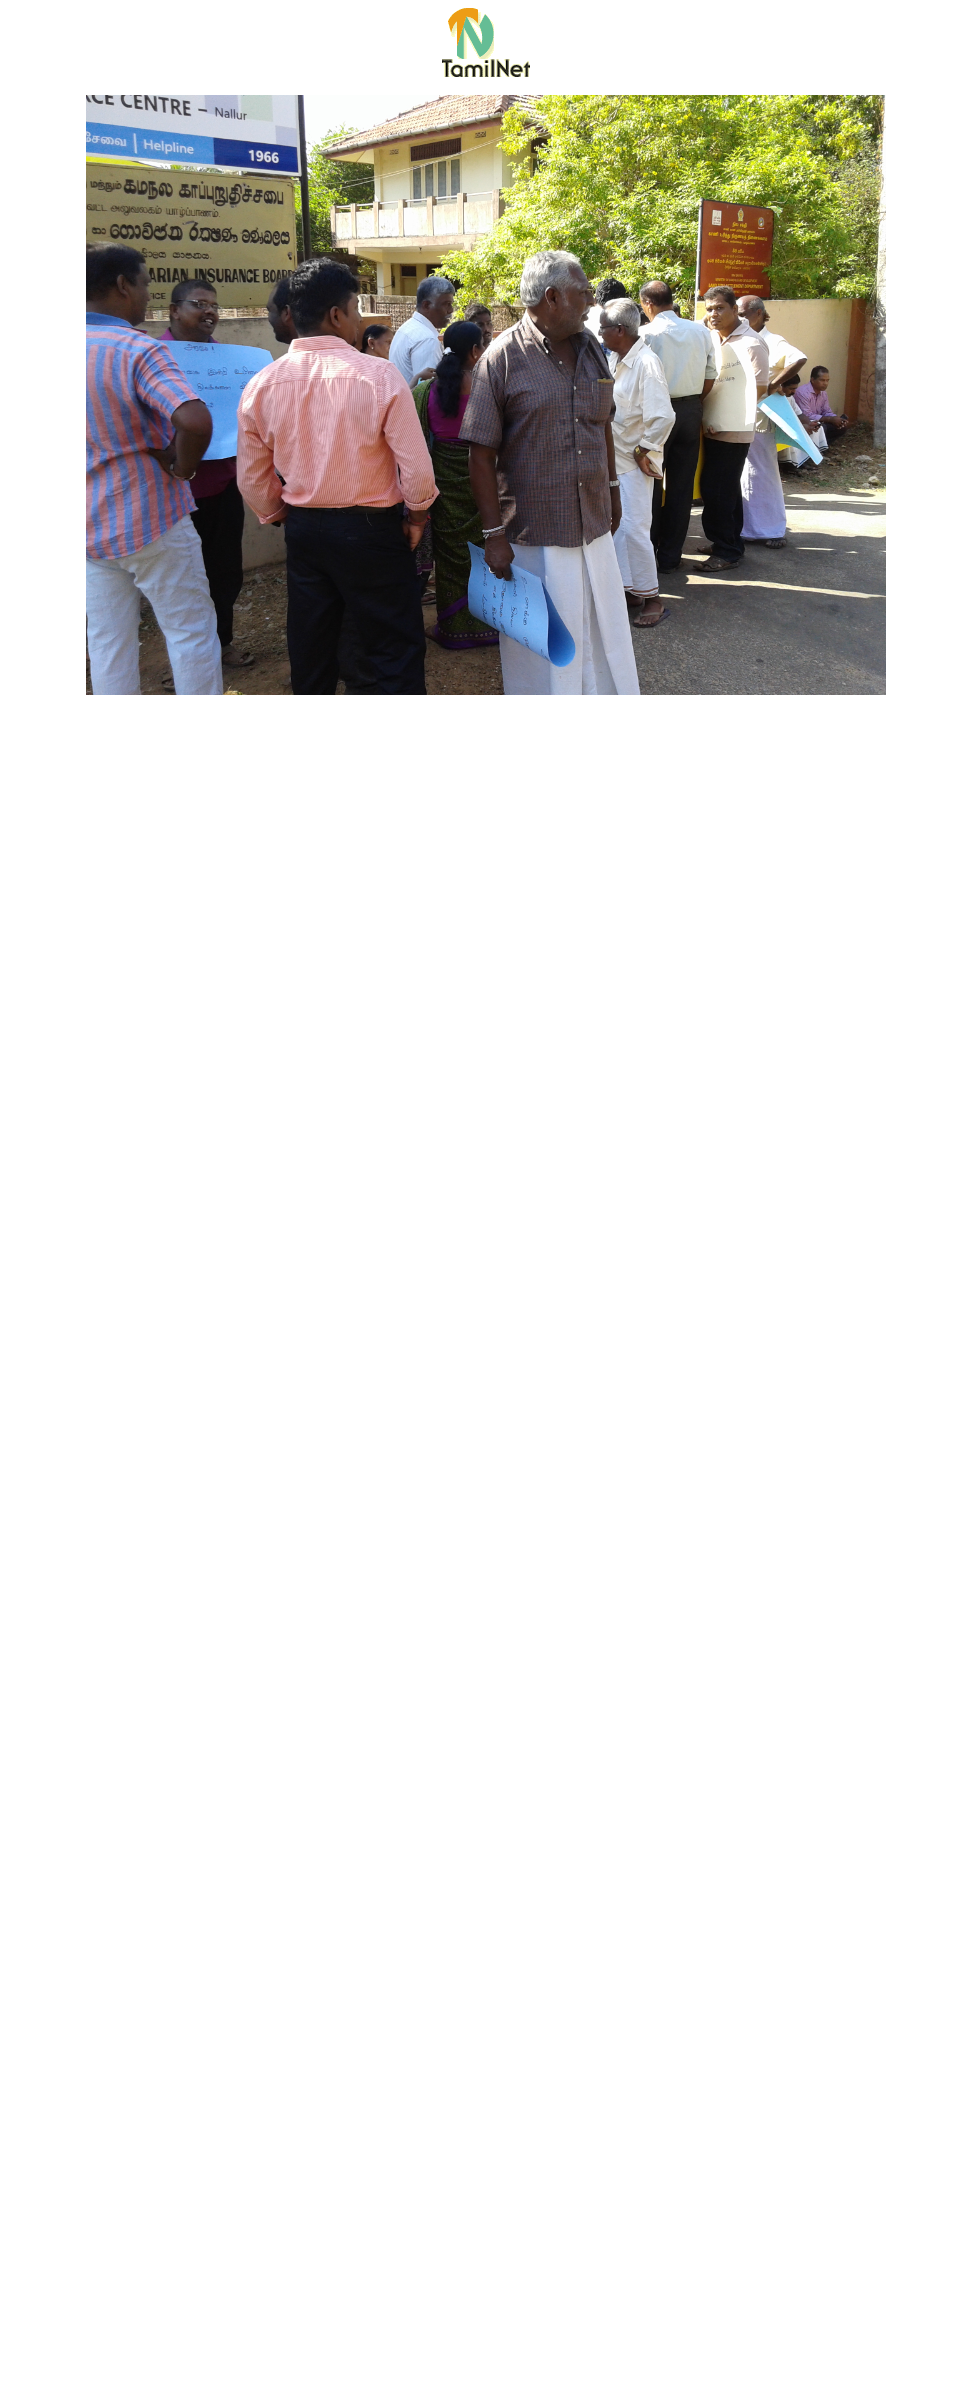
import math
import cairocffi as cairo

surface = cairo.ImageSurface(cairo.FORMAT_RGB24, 971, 2381)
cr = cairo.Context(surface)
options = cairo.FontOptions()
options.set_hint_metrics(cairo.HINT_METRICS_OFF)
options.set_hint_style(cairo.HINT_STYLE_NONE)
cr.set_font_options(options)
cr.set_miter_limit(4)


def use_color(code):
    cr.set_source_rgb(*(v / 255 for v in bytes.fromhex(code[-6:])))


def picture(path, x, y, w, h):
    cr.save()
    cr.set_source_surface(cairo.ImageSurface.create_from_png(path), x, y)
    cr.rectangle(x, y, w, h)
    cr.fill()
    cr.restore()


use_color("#ffffff")
cr.paint()
picture("img1.png", 442, 8, 88, 69)
picture("img2.png", 86, 95, 800, 600)
surface.write_to_png("result.png")
